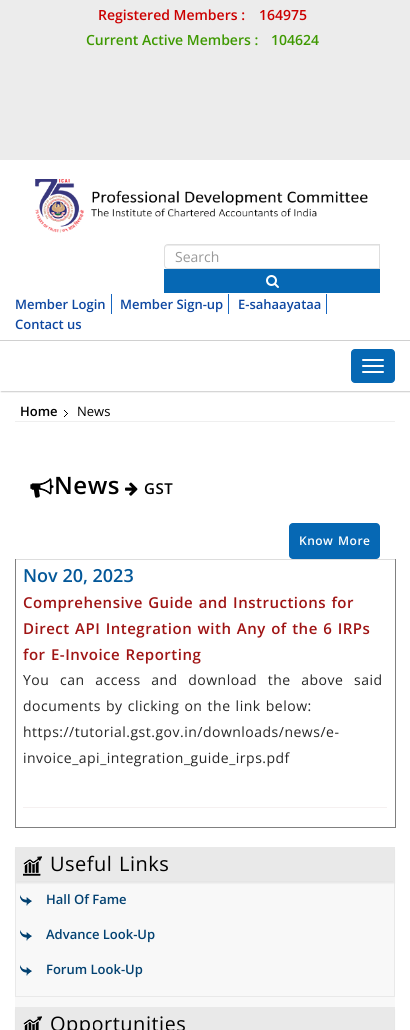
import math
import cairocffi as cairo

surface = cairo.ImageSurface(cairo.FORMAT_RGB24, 410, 1030)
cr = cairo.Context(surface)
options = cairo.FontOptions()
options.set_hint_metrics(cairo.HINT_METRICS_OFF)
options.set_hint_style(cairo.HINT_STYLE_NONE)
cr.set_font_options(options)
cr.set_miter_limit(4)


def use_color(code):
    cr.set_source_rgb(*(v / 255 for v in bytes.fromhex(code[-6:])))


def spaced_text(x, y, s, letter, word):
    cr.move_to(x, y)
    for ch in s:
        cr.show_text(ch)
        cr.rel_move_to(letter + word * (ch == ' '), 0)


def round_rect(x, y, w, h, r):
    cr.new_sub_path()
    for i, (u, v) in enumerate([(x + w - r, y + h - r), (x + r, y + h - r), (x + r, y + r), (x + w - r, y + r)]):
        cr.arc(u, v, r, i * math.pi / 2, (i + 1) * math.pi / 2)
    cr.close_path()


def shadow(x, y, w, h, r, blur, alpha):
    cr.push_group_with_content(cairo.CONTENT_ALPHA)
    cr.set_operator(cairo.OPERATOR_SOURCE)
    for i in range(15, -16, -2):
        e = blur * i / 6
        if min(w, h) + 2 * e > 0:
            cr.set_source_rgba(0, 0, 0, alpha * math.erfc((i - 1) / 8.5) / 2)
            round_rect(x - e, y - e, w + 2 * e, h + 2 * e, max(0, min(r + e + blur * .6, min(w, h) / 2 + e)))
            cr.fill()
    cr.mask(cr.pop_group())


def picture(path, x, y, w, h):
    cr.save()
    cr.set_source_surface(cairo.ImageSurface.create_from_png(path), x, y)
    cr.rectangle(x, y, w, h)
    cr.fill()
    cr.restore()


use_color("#ffffff")
cr.paint()
use_color("#ececec")
cr.rectangle(0, 0, 410, 160)
cr.fill()
cr.select_font_face("Open Sans SemiBold")
cr.set_font_size(14)
use_color("#cc0000")
cr.move_to(98, 20)
cr.show_text("Registered Members :")
cr.move_to(259, 20)
cr.show_text("164975")
use_color("#3e9901")
cr.move_to(86, 45)
cr.show_text("Current Active Members :")
cr.move_to(271, 45)
cr.show_text("104624")
picture("img1.png", 35, 179, 333, 54)
use_color("#ececec")
cr.new_path()
cr.move_to(168, 246)
cr.line_to(379, 246)
cr.line_to(379, 245)
cr.line_to(168, 245)
cr.curve_to(166, 245, 165, 246, 165, 248)
cr.line_to(165, 249)
cr.curve_to(165, 247, 166, 246, 168, 246)
cr.close_path()
cr.fill()
cr.new_path()
cr.move_to(168, 244.5)
cr.line_to(379.5, 244.5)
cr.line_to(379.5, 268.5)
cr.line_to(168, 268.5)
cr.curve_to(166, 268.5, 164.5, 267, 164.5, 265)
cr.line_to(164.5, 248)
cr.curve_to(164.5, 246, 166, 244.5, 168, 244.5)
cr.close_path()
use_color("#dedede")
cr.set_line_width(1)
cr.stroke()
cr.select_font_face("Open Sans")
use_color("#999999")
cr.move_to(175, 262)
cr.show_text("Search")
use_color("#0668b4")
cr.rectangle(164, 269, 216, 24)
cr.fill()
picture("img2.png", 266, 275, 13, 13)
use_color("#1565c0")
cr.rectangle(111, 294, 1, 20)
cr.fill()
cr.select_font_face("Open Sans SemiBold")
cr.set_font_size(13)
use_color("#0d47a1")
cr.move_to(15, 309)
cr.show_text("Member Login")
use_color("#1565c0")
cr.rectangle(228, 294, 1, 20)
cr.fill()
use_color("#0d47a1")
cr.move_to(120, 309)
cr.show_text("Member Sign-up")
use_color("#1565c0")
cr.rectangle(326, 294, 1, 20)
cr.fill()
use_color("#0d47a1")
cr.move_to(238, 309)
cr.show_text("E-sahaayataa")
cr.move_to(15, 329)
cr.show_text("Contact us")
cr.save()
cr.rectangle(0, 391, 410, 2)
cr.clip()
use_color("#d0d0d0")
shadow(1, 341, 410, 51, 0, 0.5, 1)
cr.restore()
use_color("#d0d0d0")
cr.rectangle(0, 340, 410, 1)
cr.fill()
use_color("#0668b4")
round_rect(351.5, 349.5, 43, 33, 3.5)
cr.fill_preserve()
cr.stroke()
use_color("#ffffff")
round_rect(362, 359, 22, 2, 1)
cr.fill()
round_rect(362, 365, 22, 2, 1)
cr.fill()
round_rect(362, 371, 22, 2, 1)
cr.fill()
use_color("#efefef")
cr.rectangle(15, 421, 380, 1)
cr.fill()
picture("img3.png", 64, 410, 4, 7)
use_color("#000000")
cr.move_to(20, 416)
cr.show_text("Home")
cr.select_font_face("Open Sans")
cr.move_to(77, 416)
cr.show_text("News")
picture("img4.png", 30, 478, 24, 20)
cr.select_font_face("Open Sans SemiBold")
cr.set_font_size(24)
spaced_text(54, 494, "News", 0.5, 0)
picture("img5.png", 125, 482, 13, 14)
cr.set_font_size(15)
spaced_text(144, 494, "GST", 0.5, 0)
use_color("#0668b4")
round_rect(289, 523, 91, 36, 4)
cr.fill()
cr.set_font_size(12)
use_color("#ffffff")
spaced_text(299, 545, "Know More", 0.5, 1)
use_color("#dddddd")
cr.rectangle(15, 559, 381, 1)
cr.fill()
use_color("#808080")
cr.rectangle(395, 559, 1, 269)
cr.fill()
cr.rectangle(15, 827, 381, 1)
cr.fill()
cr.rectangle(15, 559, 1, 269)
cr.fill()
use_color("#f5f0f0")
cr.rectangle(23, 807, 364, 1)
cr.fill()
cr.set_font_size(18)
use_color("#045899")
cr.move_to(23, 582)
cr.show_text("Nov 20, 2023")
cr.set_font_size(15)
use_color("#9f1414")
spaced_text(23, 608, "Comprehensive Guide and Instructions for", 0.5, 1)
spaced_text(23, 634, "Direct API Integration with Any of the 6 IRPs", 0.5, 1)
spaced_text(23, 660, "for E-Invoice Reporting", 0.5, 1)
cr.select_font_face("Open Sans")
cr.set_font_size(14)
use_color("#262626")
spaced_text(23, 685, "You can access and download the above said", 0.5, 6.5)
spaced_text(23, 711, "documents by clicking on the link below:", 0.5, 1)
spaced_text(23, 737, "https://tutorial.gst.gov.in/downloads/news/e-", 0.5, 0)
spaced_text(23, 763, "invoice_api_integration_guide_irps.pdf", 0.5, 0)
use_color("#f8f8f8")
cr.rectangle(15, 881, 380, 126)
cr.fill()
cr.rectangle(15.5, 847.5, 379, 149)
use_color("#e9e9e9")
cr.stroke()
use_color("#e3e3e3")
shadow(16, 850, 378, 33, 0, 1, 1)
use_color("#e9e9e9")
cr.rectangle(16, 848, 378, 33)
cr.fill()
picture("img6.png", 23, 856, 19, 20)
cr.set_font_size(20)
use_color("#000000")
spaced_text(50, 871, "Useful Links", 0.5, 1)
picture("img7.png", 20, 895, 12, 11)
cr.select_font_face("Open Sans SemiBold")
cr.set_font_size(13)
use_color("#024171")
cr.move_to(46, 904)
cr.show_text("Hall Of Fame")
picture("img7.png", 20, 930, 12, 11)
cr.move_to(46, 939)
cr.show_text("Advance Look-Up")
picture("img7.png", 20, 965, 12, 11)
cr.move_to(46, 974)
cr.show_text("Forum Look-Up")
cr.rectangle(15.5, 1007.5, 379, 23)
use_color("#e9e9e9")
cr.stroke()
use_color("#e3e3e3")
shadow(16, 1010, 378, 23, 0, 1, 1)
use_color("#e9e9e9")
cr.rectangle(16, 1008, 378, 22)
cr.fill()
picture("img8.png", 23, 1016, 19, 14)
cr.select_font_face("Open Sans")
cr.set_font_size(20)
use_color("#000000")
spaced_text(50, 1031, "Opportunities", 0.5, 0)
surface.write_to_png("result.png")
